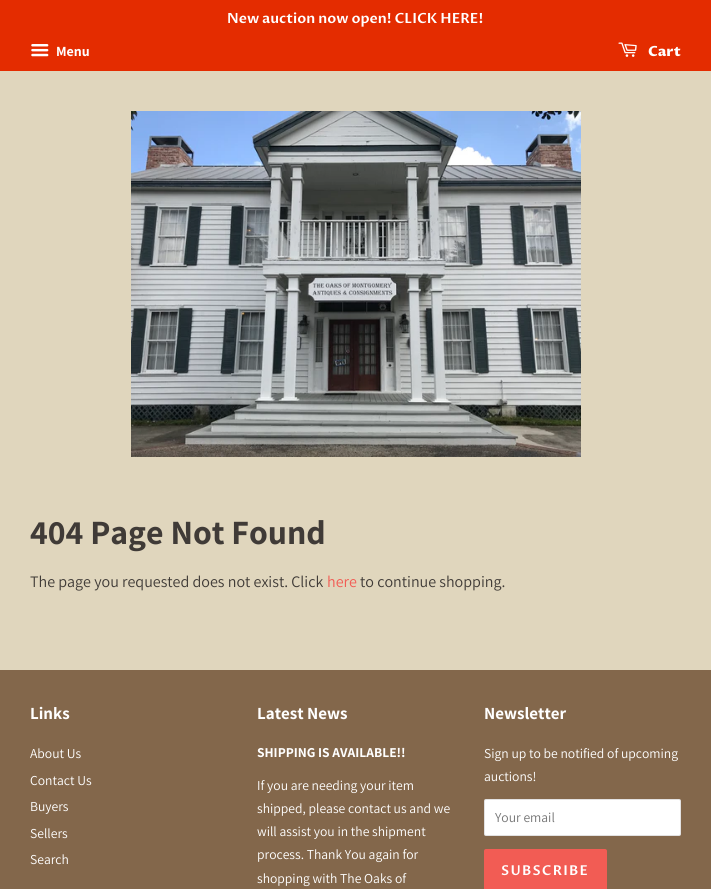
import math
import cairocffi as cairo

surface = cairo.ImageSurface(cairo.FORMAT_RGB24, 711, 889)
cr = cairo.Context(surface)
options = cairo.FontOptions()
options.set_hint_metrics(cairo.HINT_METRICS_OFF)
options.set_hint_style(cairo.HINT_STYLE_NONE)
cr.set_font_options(options)
cr.set_miter_limit(4)


def use_color(code):
    cr.set_source_rgb(*(v / 255 for v in bytes.fromhex(code[-6:])))


def spaced_text(x, y, s, letter, word):
    cr.move_to(x, y)
    for ch in s:
        cr.show_text(ch)
        cr.rel_move_to(letter + word * (ch == ' '), 0)


def round_rect(x, y, w, h, r):
    cr.new_sub_path()
    for i, (u, v) in enumerate([(x + w - r, y + h - r), (x + r, y + h - r), (x + r, y + r), (x + w - r, y + r)]):
        cr.arc(u, v, r, i * math.pi / 2, (i + 1) * math.pi / 2)
    cr.close_path()


def picture(path, x, y, w, h):
    cr.save()
    cr.set_source_surface(cairo.ImageSurface.create_from_png(path), x, y)
    cr.rectangle(x, y, w, h)
    cr.fill()
    cr.restore()


use_color("#e0d6bd")
cr.paint()
use_color("#e42c00")
cr.rectangle(0, 0, 711, 71)
cr.fill()
cr.select_font_face("Proza Libre SemiBold")
cr.set_font_size(14)
use_color("#ffffff")
cr.move_to(227, 23)
cr.show_text("New auction now open! CLICK HERE!")
picture("img1.png", 31, 44, 18, 13)
cr.select_font_face("Assistant", cairo.FONT_SLANT_NORMAL, cairo.FONT_WEIGHT_BOLD)
cr.move_to(56, 56)
cr.show_text("Menu")
picture("img2.png", 618, 42, 19, 15)
cr.select_font_face("Proza Libre ExtraBold")
cr.move_to(648, 56)
cr.show_text("Cart")
picture("img3.png", 131, 111, 450, 346)
cr.select_font_face("Assistant", cairo.FONT_SLANT_NORMAL, cairo.FONT_WEIGHT_BOLD)
cr.set_font_size(34)
use_color("#403b37")
cr.move_to(30, 544)
cr.show_text("404 Page Not Found")
cr.select_font_face("Assistant")
cr.set_font_size(16)
cr.move_to(30, 587)
cr.show_text("The page you requested does not exist. Click")
use_color("#f25c54")
cr.move_to(327, 587)
cr.show_text("here")
use_color("#403b37")
cr.move_to(360, 587)
cr.show_text("to continue shopping.")
use_color("#83674b")
cr.rectangle(0, 670, 711, 219)
cr.fill()
cr.select_font_face("Assistant", cairo.FONT_SLANT_NORMAL, cairo.FONT_WEIGHT_BOLD)
cr.set_font_size(17)
use_color("#ffffff")
cr.move_to(30, 719)
cr.show_text("Links")
cr.select_font_face("Assistant")
cr.set_font_size(13.6)
cr.move_to(30, 758)
cr.show_text("About Us")
cr.move_to(30, 785)
cr.show_text("Contact Us")
cr.move_to(30, 811)
cr.show_text("Buyers")
cr.move_to(30, 838)
cr.show_text("Sellers")
cr.move_to(30, 864)
cr.show_text("Search")
cr.select_font_face("Assistant", cairo.FONT_SLANT_NORMAL, cairo.FONT_WEIGHT_BOLD)
cr.set_font_size(17)
cr.move_to(257, 719)
cr.show_text("Latest News")
cr.set_font_size(13.6)
cr.move_to(257, 757)
cr.show_text("SHIPPING IS AVAILABLE!!")
cr.select_font_face("Assistant")
cr.move_to(257, 790)
cr.show_text("If you are needing your item")
cr.move_to(257, 813)
cr.show_text("shipped, please contact us and we")
cr.move_to(257, 836)
cr.show_text("will assist you in the shipment")
cr.move_to(257, 859)
cr.show_text("process. Thank You again for")
cr.move_to(257, 883)
cr.show_text("shopping with The Oaks of")
cr.select_font_face("Assistant", cairo.FONT_SLANT_NORMAL, cairo.FONT_WEIGHT_BOLD)
cr.set_font_size(17)
cr.move_to(484, 719)
cr.show_text("Newsletter")
cr.select_font_face("Assistant")
cr.set_font_size(13.6)
cr.move_to(484, 758)
cr.show_text("Sign up to be notified of upcoming")
cr.move_to(484, 781)
cr.show_text("auctions!")
round_rect(484, 799, 197, 37, 2)
cr.fill()
round_rect(484.5, 799.5, 196, 36, 1.5)
cr.set_source_rgba(0.251, 0.231, 0.216, 0.15)
cr.set_line_width(1)
cr.stroke()
use_color("#757575")
cr.move_to(495, 822)
cr.show_text("Your email")
use_color("#f25c54")
round_rect(484, 849, 123, 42, 2)
cr.fill()
cr.select_font_face("Proza Libre SemiBold")
use_color("#ffffff")
spaced_text(501, 875, "SUBSCRIBE", 1.25, 0)
surface.write_to_png("result.png")
